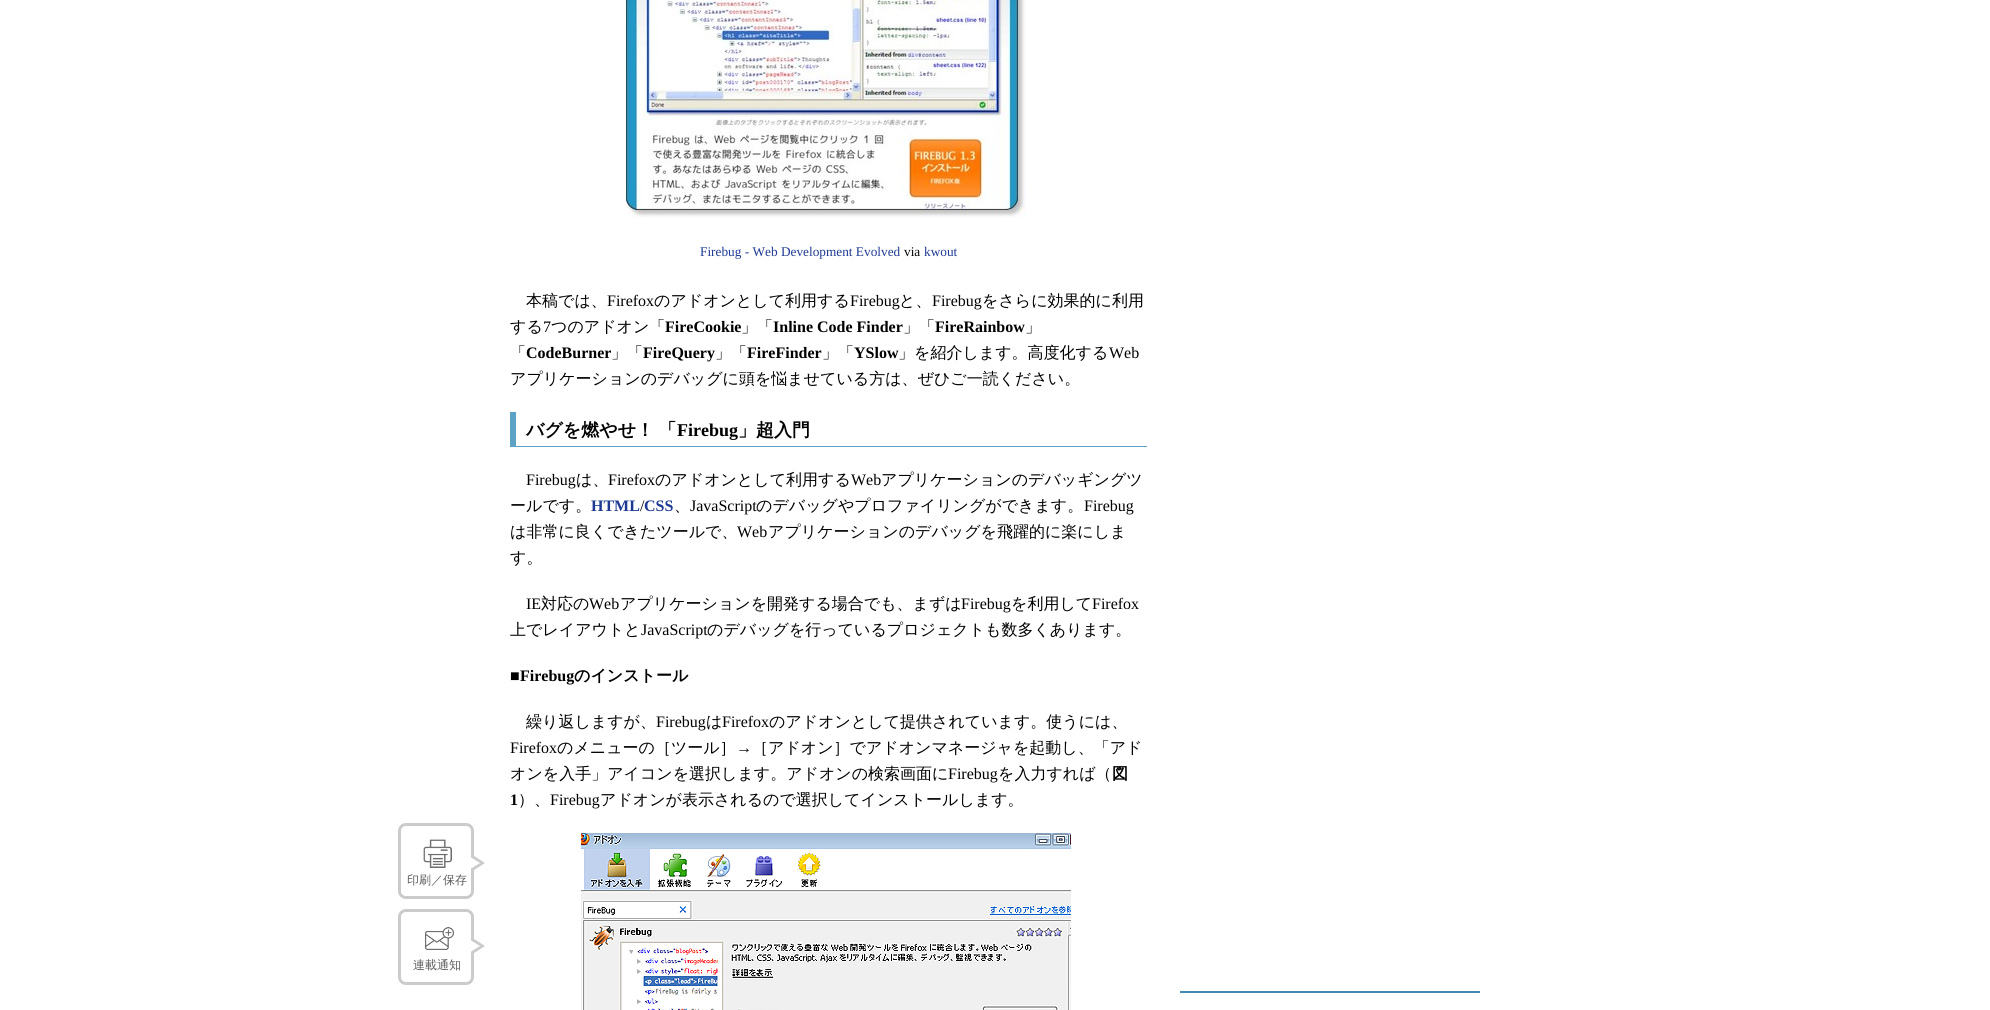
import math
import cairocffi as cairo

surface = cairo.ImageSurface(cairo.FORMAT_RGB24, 1990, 1010)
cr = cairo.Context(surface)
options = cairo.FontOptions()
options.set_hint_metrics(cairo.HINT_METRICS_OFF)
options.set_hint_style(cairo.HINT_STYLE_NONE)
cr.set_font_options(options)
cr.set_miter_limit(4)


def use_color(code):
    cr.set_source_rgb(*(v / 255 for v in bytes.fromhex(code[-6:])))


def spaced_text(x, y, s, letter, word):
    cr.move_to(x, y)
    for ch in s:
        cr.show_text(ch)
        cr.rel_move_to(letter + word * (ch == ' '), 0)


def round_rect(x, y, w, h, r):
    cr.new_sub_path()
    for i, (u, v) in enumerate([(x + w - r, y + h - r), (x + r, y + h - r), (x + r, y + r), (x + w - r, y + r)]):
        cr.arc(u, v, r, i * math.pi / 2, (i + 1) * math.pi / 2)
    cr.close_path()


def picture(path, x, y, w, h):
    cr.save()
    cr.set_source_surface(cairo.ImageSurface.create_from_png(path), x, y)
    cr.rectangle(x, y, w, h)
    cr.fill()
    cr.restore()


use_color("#ffffff")
cr.paint()
picture("img1.png", 626, 0, 400, 218)
cr.select_font_face("Liberation Serif")
cr.set_font_size(13.3)
use_color("#1d3994")
cr.move_to(700, 256)
cr.show_text("Firebug - Web Development Evolved")
use_color("#000000")
cr.move_to(904, 256)
cr.show_text("via")
use_color("#1d3994")
cr.move_to(924, 256)
cr.show_text("kwout")
cr.select_font_face("WenQuanYi Zen Hei Medium")
cr.set_font_size(16)
use_color("#000000")
cr.move_to(526, 306)
cr.show_text("本稿では、")
cr.select_font_face("Liberation Serif")
cr.move_to(607, 306)
cr.show_text("Firefox")
cr.select_font_face("WenQuanYi Zen Hei Medium")
cr.move_to(654, 306)
cr.show_text("のアドオンとして利用する")
cr.select_font_face("Liberation Serif")
cr.move_to(850, 306)
cr.show_text("Firebug")
cr.select_font_face("WenQuanYi Zen Hei Medium")
cr.move_to(899, 306)
cr.show_text("と、")
cr.select_font_face("Liberation Serif")
cr.move_to(932, 306)
cr.show_text("Firebug")
cr.select_font_face("WenQuanYi Zen Hei Medium")
cr.move_to(982, 306)
cr.show_text("をさらに効果的に利用")
cr.move_to(510, 332)
cr.show_text("する")
cr.select_font_face("Liberation Serif")
cr.move_to(543, 332)
cr.show_text("7")
cr.select_font_face("WenQuanYi Zen Hei Medium")
cr.move_to(551, 332)
cr.show_text("つのアドオン「")
cr.select_font_face("Liberation Serif", cairo.FONT_SLANT_NORMAL, cairo.FONT_WEIGHT_BOLD)
cr.move_to(665, 332)
cr.show_text("FireCookie")
cr.select_font_face("WenQuanYi Zen Hei Medium")
cr.move_to(741, 332)
cr.show_text("」「")
cr.select_font_face("Liberation Serif", cairo.FONT_SLANT_NORMAL, cairo.FONT_WEIGHT_BOLD)
cr.move_to(773, 332)
cr.show_text("Inline Code Finder")
cr.select_font_face("WenQuanYi Zen Hei Medium")
cr.move_to(903, 332)
cr.show_text("」「")
cr.select_font_face("Liberation Serif", cairo.FONT_SLANT_NORMAL, cairo.FONT_WEIGHT_BOLD)
cr.move_to(935, 332)
cr.show_text("FireRainbow")
cr.select_font_face("WenQuanYi Zen Hei Medium")
cr.move_to(1025, 332)
cr.show_text("」")
cr.move_to(510, 358)
cr.show_text("「")
cr.select_font_face("Liberation Serif", cairo.FONT_SLANT_NORMAL, cairo.FONT_WEIGHT_BOLD)
cr.move_to(526, 358)
cr.show_text("CodeBurner")
cr.select_font_face("WenQuanYi Zen Hei Medium")
cr.move_to(611, 358)
cr.show_text("」「")
cr.select_font_face("Liberation Serif", cairo.FONT_SLANT_NORMAL, cairo.FONT_WEIGHT_BOLD)
cr.move_to(643, 358)
cr.show_text("FireQuery")
cr.select_font_face("WenQuanYi Zen Hei Medium")
cr.move_to(715, 358)
cr.show_text("」「")
cr.select_font_face("Liberation Serif", cairo.FONT_SLANT_NORMAL, cairo.FONT_WEIGHT_BOLD)
cr.move_to(747, 358)
cr.show_text("FireFinder")
cr.select_font_face("WenQuanYi Zen Hei Medium")
cr.move_to(822, 358)
cr.show_text("」「")
cr.select_font_face("Liberation Serif", cairo.FONT_SLANT_NORMAL, cairo.FONT_WEIGHT_BOLD)
cr.move_to(854, 358)
cr.show_text("YSlow")
cr.select_font_face("WenQuanYi Zen Hei Medium")
cr.move_to(898, 358)
cr.show_text("」を紹介します。高度化する")
cr.select_font_face("Liberation Serif")
cr.move_to(1109, 358)
cr.show_text("Web")
cr.select_font_face("WenQuanYi Zen Hei Medium")
cr.move_to(510, 384)
cr.show_text("アプリケーションのデバッグに頭を悩ませている方は、ぜひご一読ください。")
use_color("#5ca3c5")
cr.rectangle(510, 446, 637, 1)
cr.fill()
cr.rectangle(510, 412, 6, 35)
cr.fill()
cr.select_font_face("WenQuanYi Zen Hei", cairo.FONT_SLANT_NORMAL, cairo.FONT_WEIGHT_BOLD)
cr.set_font_size(18)
use_color("#000000")
spaced_text(526, 436, "バグを燃やせ！ 「", 0, -1)
cr.select_font_face("Liberation Serif", cairo.FONT_SLANT_NORMAL, cairo.FONT_WEIGHT_BOLD)
cr.move_to(677, 436)
cr.show_text("Firebug")
cr.select_font_face("WenQuanYi Zen Hei", cairo.FONT_SLANT_NORMAL, cairo.FONT_WEIGHT_BOLD)
cr.move_to(738, 436)
cr.show_text("」超入門")
cr.select_font_face("Liberation Serif")
cr.set_font_size(16)
cr.move_to(526, 485)
cr.show_text("Firebug")
cr.select_font_face("WenQuanYi Zen Hei Medium")
cr.move_to(576, 485)
cr.show_text("は、")
cr.select_font_face("Liberation Serif")
cr.move_to(608, 485)
cr.show_text("Firefox")
cr.select_font_face("WenQuanYi Zen Hei Medium")
cr.move_to(655, 485)
cr.show_text("のアドオンとして利用する")
cr.select_font_face("Liberation Serif")
cr.move_to(851, 485)
cr.show_text("Web")
cr.select_font_face("WenQuanYi Zen Hei Medium")
cr.move_to(881, 485)
cr.show_text("アプリケーションのデバッギングツ")
cr.move_to(510, 511)
cr.show_text("ールです。")
cr.select_font_face("Liberation Serif", cairo.FONT_SLANT_NORMAL, cairo.FONT_WEIGHT_BOLD)
use_color("#1d3994")
cr.move_to(591, 511)
cr.show_text("HTML")
cr.select_font_face("Liberation Serif")
use_color("#000000")
cr.move_to(640, 511)
cr.show_text("/")
cr.select_font_face("Liberation Serif", cairo.FONT_SLANT_NORMAL, cairo.FONT_WEIGHT_BOLD)
use_color("#1d3994")
cr.move_to(644, 511)
cr.show_text("CSS")
cr.select_font_face("WenQuanYi Zen Hei Medium")
use_color("#000000")
cr.move_to(674, 511)
cr.show_text("、")
cr.select_font_face("Liberation Serif")
cr.move_to(690, 511)
cr.show_text("JavaScript")
cr.select_font_face("WenQuanYi Zen Hei Medium")
cr.move_to(756, 511)
cr.show_text("のデバッグやプロファイリングができます。")
cr.select_font_face("Liberation Serif")
cr.move_to(1084, 511)
cr.show_text("Firebug")
cr.select_font_face("WenQuanYi Zen Hei Medium")
cr.move_to(510, 537)
cr.show_text("は非常に良くできたツールで、")
cr.select_font_face("Liberation Serif")
cr.move_to(737, 537)
cr.show_text("Web")
cr.select_font_face("WenQuanYi Zen Hei Medium")
cr.move_to(768, 537)
cr.show_text("アプリケーションのデバッグを飛躍的に楽にしま")
cr.move_to(510, 563)
cr.show_text("す。")
cr.select_font_face("Liberation Serif")
cr.move_to(526, 609)
cr.show_text("IE")
cr.select_font_face("WenQuanYi Zen Hei Medium")
cr.move_to(541, 609)
cr.show_text("対応の")
cr.select_font_face("Liberation Serif")
cr.move_to(589, 609)
cr.show_text("Web")
cr.select_font_face("WenQuanYi Zen Hei Medium")
cr.move_to(620, 609)
cr.show_text("アプリケーションを開発する場合でも、まずは")
cr.select_font_face("Liberation Serif")
cr.move_to(961, 609)
cr.show_text("Firebug")
cr.select_font_face("WenQuanYi Zen Hei Medium")
cr.move_to(1011, 609)
cr.show_text("を利用して")
cr.select_font_face("Liberation Serif")
cr.move_to(1092, 609)
cr.show_text("Firefox")
cr.select_font_face("WenQuanYi Zen Hei Medium")
cr.move_to(510, 635)
cr.show_text("上でレイアウトと")
cr.select_font_face("Liberation Serif")
cr.move_to(641, 635)
cr.show_text("JavaScript")
cr.select_font_face("WenQuanYi Zen Hei Medium")
cr.move_to(707, 635)
cr.show_text("のデバッグを行っているプロジェクトも数多くあります。")
cr.select_font_face("Liberation Serif")
cr.move_to(510, 681)
cr.show_text("■")
cr.select_font_face("Liberation Serif", cairo.FONT_SLANT_NORMAL, cairo.FONT_WEIGHT_BOLD)
cr.move_to(520, 681)
cr.show_text("Firebug")
cr.select_font_face("WenQuanYi Zen Hei", cairo.FONT_SLANT_NORMAL, cairo.FONT_WEIGHT_BOLD)
cr.move_to(574, 681)
cr.show_text("のインストール")
cr.select_font_face("WenQuanYi Zen Hei Medium")
cr.move_to(526, 727)
cr.show_text("繰り返しますが、")
cr.select_font_face("Liberation Serif")
cr.move_to(656, 727)
cr.show_text("Firebug")
cr.select_font_face("WenQuanYi Zen Hei Medium")
cr.move_to(706, 727)
cr.show_text("は")
cr.select_font_face("Liberation Serif")
cr.move_to(722, 727)
cr.show_text("Firefox")
cr.select_font_face("WenQuanYi Zen Hei Medium")
cr.move_to(769, 727)
cr.show_text("のアドオンとして提供されています。使うには、")
cr.select_font_face("Liberation Serif")
cr.move_to(510, 753)
cr.show_text("Firefox")
cr.select_font_face("WenQuanYi Zen Hei Medium")
cr.move_to(557, 753)
cr.show_text("のメニューの［ツール］")
cr.select_font_face("Liberation Serif")
cr.move_to(736, 753)
cr.show_text("→")
cr.select_font_face("WenQuanYi Zen Hei Medium")
cr.move_to(752, 753)
cr.show_text("［アドオン］でアドオンマネージャを起動し、「アド")
cr.move_to(510, 779)
cr.show_text("オンを入手」アイコンを選択します。アドオンの検索画面に")
cr.select_font_face("Liberation Serif")
cr.move_to(948, 779)
cr.show_text("Firebug")
cr.select_font_face("WenQuanYi Zen Hei Medium")
cr.move_to(998, 779)
cr.show_text("を入力すれば（")
cr.select_font_face("WenQuanYi Zen Hei", cairo.FONT_SLANT_NORMAL, cairo.FONT_WEIGHT_BOLD)
cr.move_to(1112, 779)
cr.show_text("図")
cr.select_font_face("Liberation Serif", cairo.FONT_SLANT_NORMAL, cairo.FONT_WEIGHT_BOLD)
cr.move_to(510, 805)
cr.show_text("1")
cr.select_font_face("WenQuanYi Zen Hei Medium")
cr.move_to(518, 805)
cr.show_text("）、")
cr.select_font_face("Liberation Serif")
cr.move_to(550, 805)
cr.show_text("Firebug")
cr.select_font_face("WenQuanYi Zen Hei Medium")
cr.move_to(600, 805)
cr.show_text("アドオンが表示されるので選択してインストールします。")
picture("img2.png", 581, 833, 490, 177)
round_rect(399.5, 824.5, 73, 73, 6.5)
use_color("#cbcbcb")
cr.set_line_width(3)
cr.stroke()
cr.new_path()
cr.move_to(471, 872)
cr.line_to(471, 854)
cr.line_to(485, 863)
cr.close_path()
cr.fill()
use_color("#ffffff")
cr.new_path()
cr.move_to(467, 871)
cr.line_to(467, 855)
cr.line_to(480, 863)
cr.close_path()
cr.fill()
picture("img3.png", 423, 839, 29, 29)
cr.set_font_size(12)
use_color("#5b5b5b")
cr.move_to(407, 884)
cr.show_text("印刷／保存")
round_rect(399.5, 910.5, 73, 73, 6.5)
use_color("#cbcbcb")
cr.stroke()
cr.new_path()
cr.move_to(471, 955)
cr.line_to(471, 937)
cr.line_to(485, 946)
cr.close_path()
cr.fill()
use_color("#ffffff")
cr.new_path()
cr.move_to(467, 954)
cr.line_to(467, 938)
cr.line_to(480, 946)
cr.close_path()
cr.fill()
picture("img4.png", 425, 927, 29, 23)
use_color("#5b5b5b")
cr.move_to(413, 969)
cr.show_text("連載通知")
use_color("#408cb3")
cr.rectangle(1180, 991, 300, 2)
cr.fill()
surface.write_to_png("result.png")
